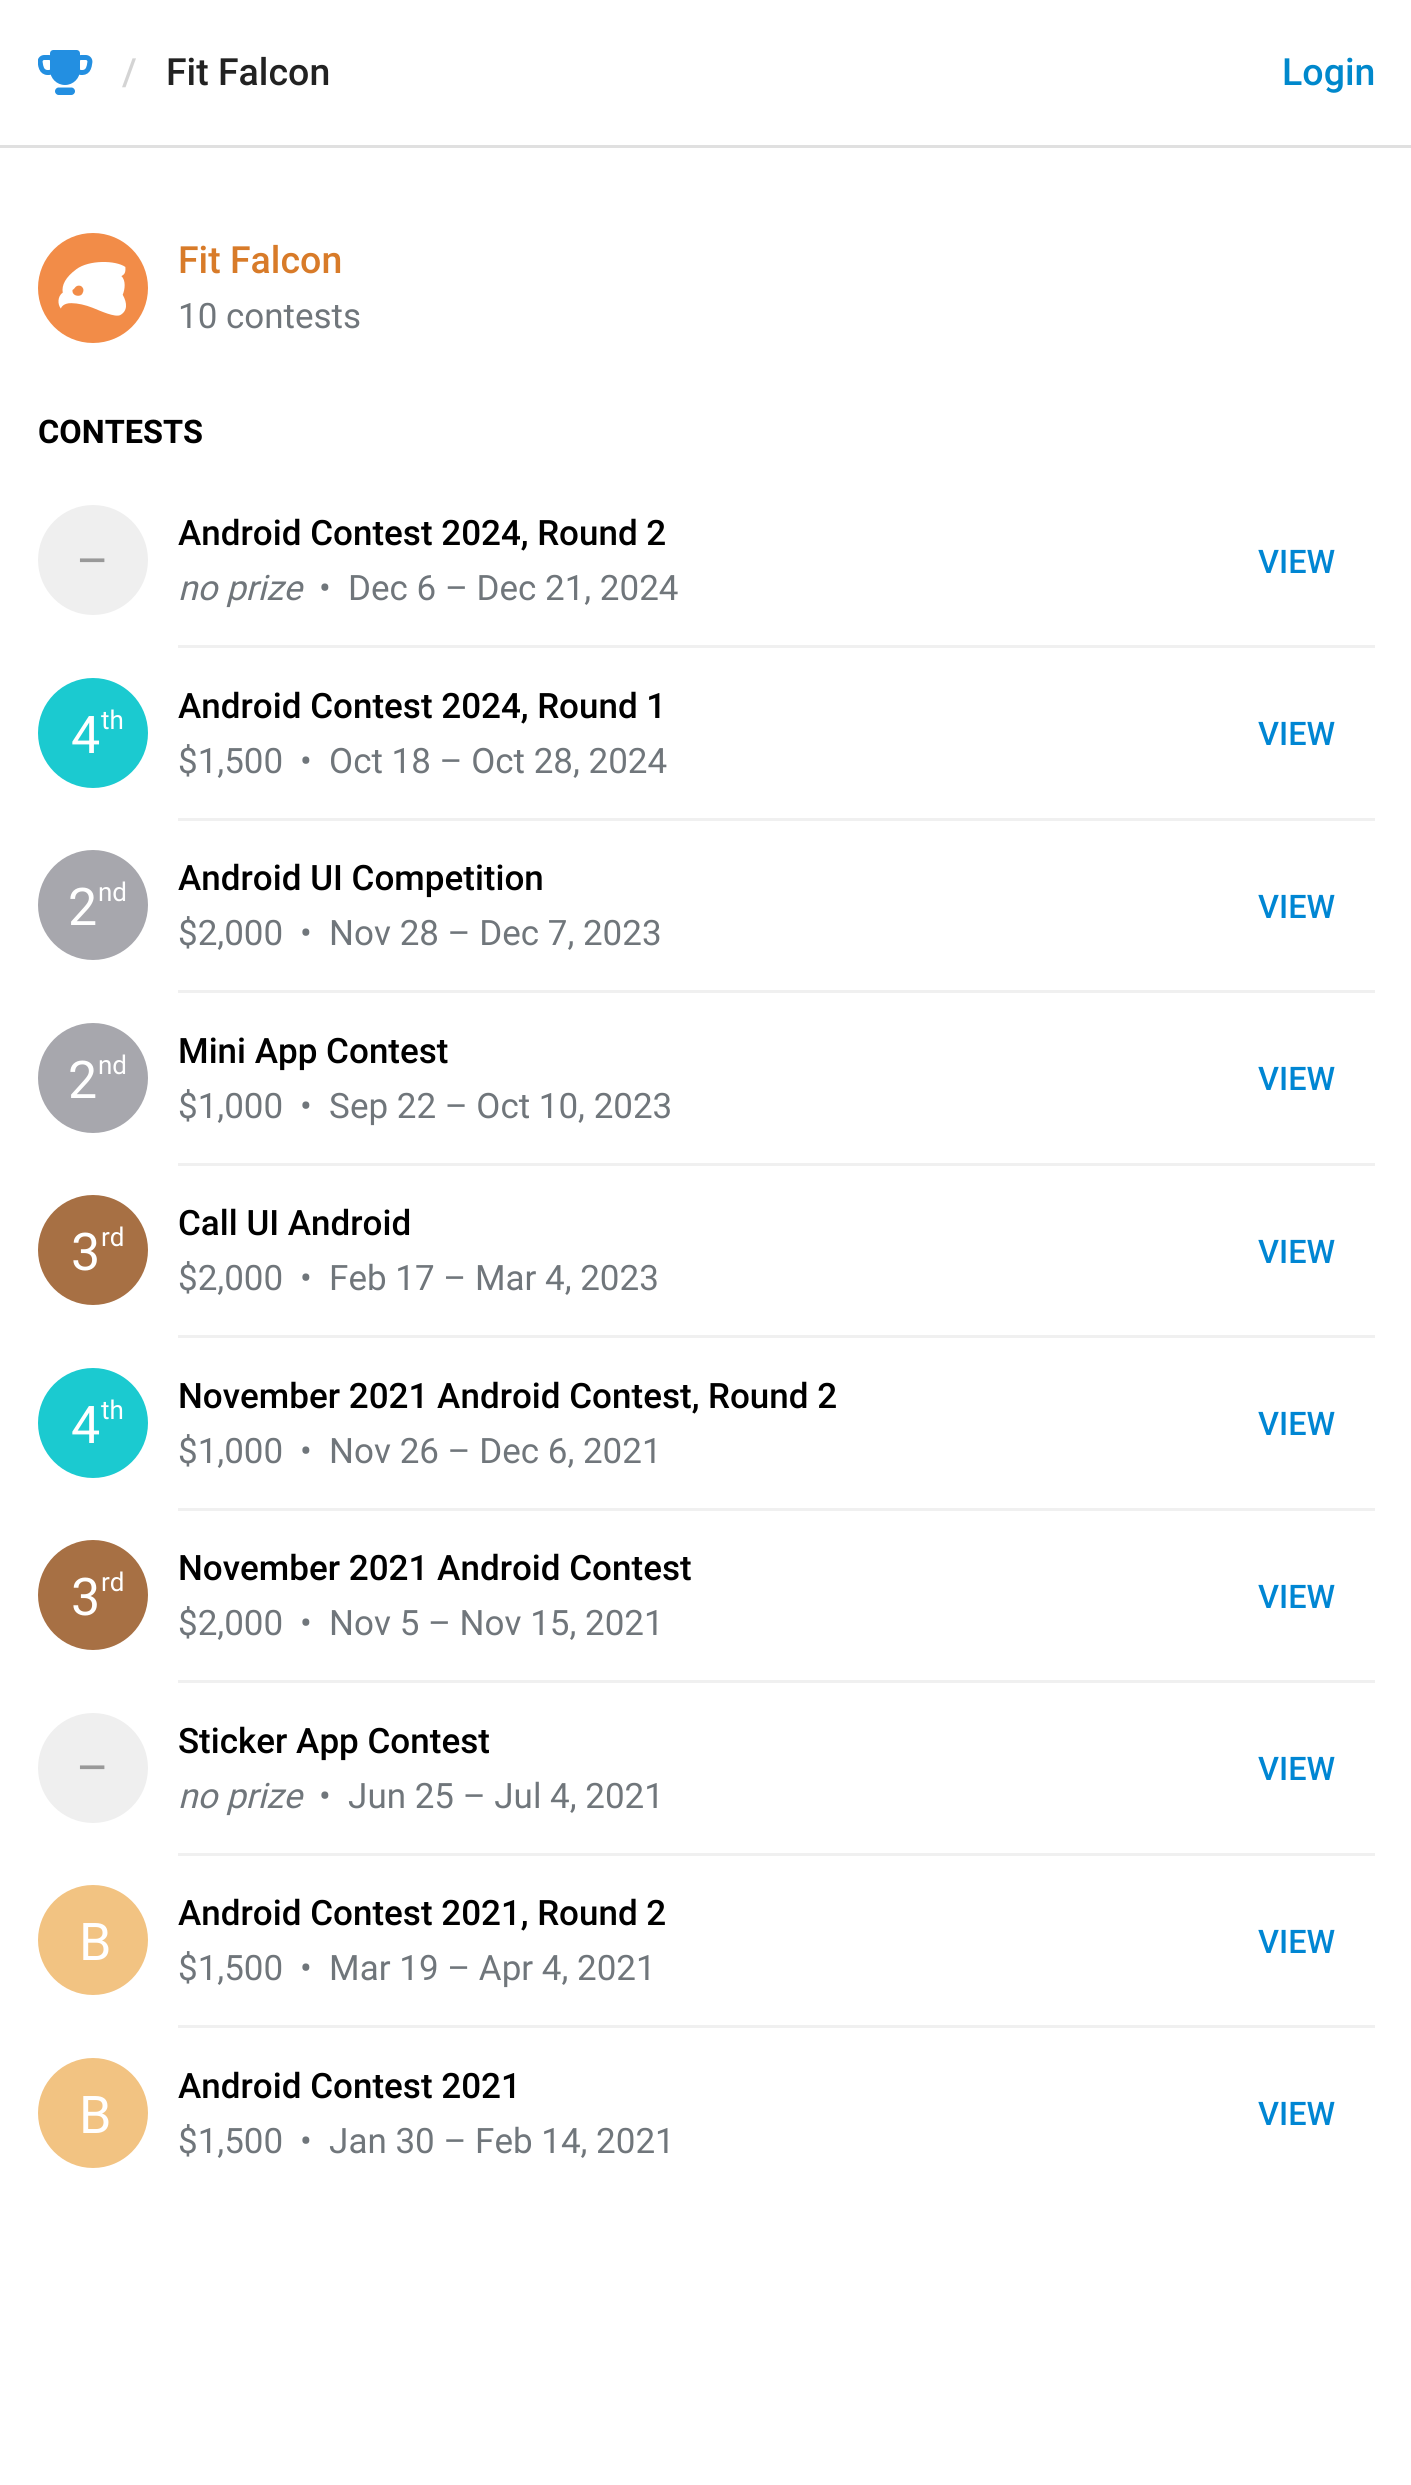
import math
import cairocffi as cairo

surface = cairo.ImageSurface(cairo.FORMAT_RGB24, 1411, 2485)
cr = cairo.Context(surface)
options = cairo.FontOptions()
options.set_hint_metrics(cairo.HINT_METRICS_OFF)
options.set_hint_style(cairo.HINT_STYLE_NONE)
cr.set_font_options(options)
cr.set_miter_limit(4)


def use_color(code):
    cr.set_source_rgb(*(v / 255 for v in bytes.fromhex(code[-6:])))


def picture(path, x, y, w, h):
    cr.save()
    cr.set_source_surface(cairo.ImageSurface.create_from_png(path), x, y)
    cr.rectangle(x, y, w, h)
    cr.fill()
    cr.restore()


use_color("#ffffff")
cr.paint()
use_color("#e0e0e0")
cr.new_path()
cr.move_to(0, 145)
cr.line_to(0, 148)
cr.line_to(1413, 148)
cr.line_to(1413, 3)
cr.line_to(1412, 3)
cr.line_to(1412, 145)
cr.close_path()
cr.fill()
picture("img1.png", 38, 50, 55, 45)
cr.select_font_face("Roboto Medium")
cr.set_font_size(37.5)
use_color("#d4d4d4")
cr.move_to(122, 85)
cr.show_text("/")
use_color("#222222")
cr.move_to(166, 85)
cr.show_text("Fit Falcon")
use_color("#0088cc")
cr.move_to(1282, 85)
cr.show_text("Login")
use_color("#f28c48")
cr.new_path()
cr.arc(93, 288, 55, 0, 2 * math.pi)
cr.fill()
picture("img2.png", 58, 262, 68, 54)
use_color("#d87b29")
cr.move_to(178, 273)
cr.show_text("Fit Falcon")
cr.select_font_face("Roboto")
cr.set_font_size(35)
use_color("#70767b")
cr.move_to(178, 328)
cr.show_text("10 contests")
cr.select_font_face("Roboto", cairo.FONT_SLANT_NORMAL, cairo.FONT_WEIGHT_BOLD)
cr.set_font_size(32.5)
use_color("#000000")
cr.move_to(38, 443)
cr.show_text("CONTESTS")
cr.select_font_face("Roboto Medium")
cr.set_font_size(35)
cr.move_to(178, 545)
cr.show_text("Android Contest 2024, Round 2")
use_color("#efefef")
cr.new_path()
cr.arc(93, 560, 55, 0, 2 * math.pi)
cr.fill()
cr.select_font_face("Roboto")
cr.set_font_size(50)
use_color("#999999")
cr.move_to(76, 578)
cr.show_text("–")
cr.select_font_face("Roboto Medium")
cr.set_font_size(32.5)
use_color("#0086d3")
cr.move_to(1258, 573)
cr.show_text("VIEW")
cr.select_font_face("Roboto", cairo.FONT_SLANT_ITALIC)
cr.set_font_size(35)
use_color("#70767b")
cr.move_to(178, 600)
cr.show_text("no prize")
cr.select_font_face("Roboto")
cr.move_to(319, 600)
cr.show_text("•  Dec 6 – Dec 21, 2024")
use_color("#f0f0f0")
cr.rectangle(178, 645, 1197, 3)
cr.fill()
use_color("#1bcad0")
cr.arc(93, 733, 55, 0, 2 * math.pi)
cr.fill()
cr.set_font_size(52)
use_color("#ffffff")
cr.move_to(71, 753)
cr.show_text("4")
cr.set_font_size(26)
cr.move_to(101, 729)
cr.show_text("th")
cr.select_font_face("Roboto Medium")
cr.set_font_size(35)
use_color("#000000")
cr.move_to(178, 718)
cr.show_text("Android Contest 2024, Round 1")
cr.set_font_size(32.5)
use_color("#0086d3")
cr.move_to(1258, 745)
cr.show_text("VIEW")
cr.select_font_face("Roboto")
cr.set_font_size(35)
use_color("#70767b")
cr.move_to(178, 773)
cr.show_text("$1,500")
cr.move_to(300, 773)
cr.show_text("•  Oct 18 – Oct 28, 2024")
use_color("#f0f0f0")
cr.rectangle(178, 818, 1197, 3)
cr.fill()
use_color("#a7a7ad")
cr.arc(93, 905, 55, 0, 2 * math.pi)
cr.fill()
cr.set_font_size(52)
use_color("#ffffff")
cr.move_to(68, 925)
cr.show_text("2")
cr.set_font_size(26)
cr.move_to(98, 901)
cr.show_text("nd")
cr.select_font_face("Roboto Medium")
cr.set_font_size(35)
use_color("#000000")
cr.move_to(178, 890)
cr.show_text("Android UI Competition")
cr.set_font_size(32.5)
use_color("#0086d3")
cr.move_to(1258, 918)
cr.show_text("VIEW")
cr.select_font_face("Roboto")
cr.set_font_size(35)
use_color("#70767b")
cr.move_to(178, 945)
cr.show_text("$2,000")
cr.move_to(300, 945)
cr.show_text("•  Nov 28 – Dec 7, 2023")
use_color("#f0f0f0")
cr.rectangle(178, 990, 1197, 3)
cr.fill()
use_color("#a7a7ad")
cr.arc(93, 1078, 55, 0, 2 * math.pi)
cr.fill()
cr.set_font_size(52)
use_color("#ffffff")
cr.move_to(68, 1098)
cr.show_text("2")
cr.set_font_size(26)
cr.move_to(98, 1074)
cr.show_text("nd")
cr.select_font_face("Roboto Medium")
cr.set_font_size(35)
use_color("#000000")
cr.move_to(178, 1063)
cr.show_text("Mini App Contest")
cr.set_font_size(32.5)
use_color("#0086d3")
cr.move_to(1258, 1090)
cr.show_text("VIEW")
cr.select_font_face("Roboto")
cr.set_font_size(35)
use_color("#70767b")
cr.move_to(178, 1118)
cr.show_text("$1,000")
cr.move_to(300, 1118)
cr.show_text("•  Sep 22 – Oct 10, 2023")
use_color("#f0f0f0")
cr.rectangle(178, 1163, 1197, 3)
cr.fill()
cr.select_font_face("Roboto Medium")
use_color("#000000")
cr.move_to(178, 1235)
cr.show_text("Call UI Android")
use_color("#a77044")
cr.new_path()
cr.arc(93, 1250, 55, 0, 2 * math.pi)
cr.fill()
cr.select_font_face("Roboto")
cr.set_font_size(52)
use_color("#ffffff")
cr.move_to(71, 1270)
cr.show_text("3")
cr.set_font_size(26)
cr.move_to(101, 1246)
cr.show_text("rd")
cr.select_font_face("Roboto Medium")
cr.set_font_size(32.5)
use_color("#0086d3")
cr.move_to(1258, 1263)
cr.show_text("VIEW")
cr.select_font_face("Roboto")
cr.set_font_size(35)
use_color("#70767b")
cr.move_to(178, 1290)
cr.show_text("$2,000")
cr.move_to(300, 1290)
cr.show_text("•  Feb 17 – Mar 4, 2023")
use_color("#f0f0f0")
cr.rectangle(178, 1335, 1197, 3)
cr.fill()
use_color("#1bcad0")
cr.arc(93, 1423, 55, 0, 2 * math.pi)
cr.fill()
cr.set_font_size(52)
use_color("#ffffff")
cr.move_to(71, 1443)
cr.show_text("4")
cr.set_font_size(26)
cr.move_to(101, 1419)
cr.show_text("th")
cr.select_font_face("Roboto Medium")
cr.set_font_size(35)
use_color("#000000")
cr.move_to(178, 1408)
cr.show_text("November 2021 Android Contest, Round 2")
cr.set_font_size(32.5)
use_color("#0086d3")
cr.move_to(1258, 1435)
cr.show_text("VIEW")
cr.select_font_face("Roboto")
cr.set_font_size(35)
use_color("#70767b")
cr.move_to(178, 1463)
cr.show_text("$1,000")
cr.move_to(300, 1463)
cr.show_text("•  Nov 26 – Dec 6, 2021")
use_color("#f0f0f0")
cr.rectangle(178, 1508, 1197, 3)
cr.fill()
cr.select_font_face("Roboto Medium")
use_color("#000000")
cr.move_to(178, 1580)
cr.show_text("November 2021 Android Contest")
use_color("#a77044")
cr.new_path()
cr.arc(93, 1595, 55, 0, 2 * math.pi)
cr.fill()
cr.select_font_face("Roboto")
cr.set_font_size(52)
use_color("#ffffff")
cr.move_to(71, 1615)
cr.show_text("3")
cr.set_font_size(26)
cr.move_to(101, 1591)
cr.show_text("rd")
cr.select_font_face("Roboto Medium")
cr.set_font_size(32.5)
use_color("#0086d3")
cr.move_to(1258, 1608)
cr.show_text("VIEW")
cr.select_font_face("Roboto")
cr.set_font_size(35)
use_color("#70767b")
cr.move_to(178, 1635)
cr.show_text("$2,000")
cr.move_to(300, 1635)
cr.show_text("•  Nov 5 – Nov 15, 2021")
use_color("#f0f0f0")
cr.rectangle(178, 1680, 1197, 3)
cr.fill()
cr.select_font_face("Roboto Medium")
use_color("#000000")
cr.move_to(178, 1753)
cr.show_text("Sticker App Contest")
use_color("#efefef")
cr.new_path()
cr.arc(93, 1768, 55, 0, 2 * math.pi)
cr.fill()
cr.select_font_face("Roboto")
cr.set_font_size(50)
use_color("#999999")
cr.move_to(76, 1785)
cr.show_text("–")
cr.select_font_face("Roboto Medium")
cr.set_font_size(32.5)
use_color("#0086d3")
cr.move_to(1258, 1780)
cr.show_text("VIEW")
cr.select_font_face("Roboto", cairo.FONT_SLANT_ITALIC)
cr.set_font_size(35)
use_color("#70767b")
cr.move_to(178, 1808)
cr.show_text("no prize")
cr.select_font_face("Roboto")
cr.move_to(319, 1808)
cr.show_text("•  Jun 25 – Jul 4, 2021")
use_color("#f0f0f0")
cr.rectangle(178, 1853, 1197, 3)
cr.fill()
cr.select_font_face("Roboto Medium")
use_color("#000000")
cr.move_to(178, 1925)
cr.show_text("Android Contest 2021, Round 2")
use_color("#f2c382")
cr.new_path()
cr.arc(93, 1940, 55, 0, 2 * math.pi)
cr.fill()
cr.select_font_face("Roboto")
cr.set_font_size(52)
use_color("#ffffff")
cr.move_to(79, 1960)
cr.show_text("B")
cr.select_font_face("Roboto Medium")
cr.set_font_size(32.5)
use_color("#0086d3")
cr.move_to(1258, 1953)
cr.show_text("VIEW")
cr.select_font_face("Roboto")
cr.set_font_size(35)
use_color("#70767b")
cr.move_to(178, 1980)
cr.show_text("$1,500")
cr.move_to(300, 1980)
cr.show_text("•  Mar 19 – Apr 4, 2021")
use_color("#f0f0f0")
cr.rectangle(178, 2025, 1197, 3)
cr.fill()
cr.select_font_face("Roboto Medium")
use_color("#000000")
cr.move_to(178, 2098)
cr.show_text("Android Contest 2021")
use_color("#f2c382")
cr.new_path()
cr.arc(93, 2113, 55, 0, 2 * math.pi)
cr.fill()
cr.select_font_face("Roboto")
cr.set_font_size(52)
use_color("#ffffff")
cr.move_to(79, 2133)
cr.show_text("B")
cr.select_font_face("Roboto Medium")
cr.set_font_size(32.5)
use_color("#0086d3")
cr.move_to(1258, 2125)
cr.show_text("VIEW")
cr.select_font_face("Roboto")
cr.set_font_size(35)
use_color("#70767b")
cr.move_to(178, 2153)
cr.show_text("$1,500")
cr.move_to(300, 2153)
cr.show_text("•  Jan 30 – Feb 14, 2021")
surface.write_to_png("result.png")
